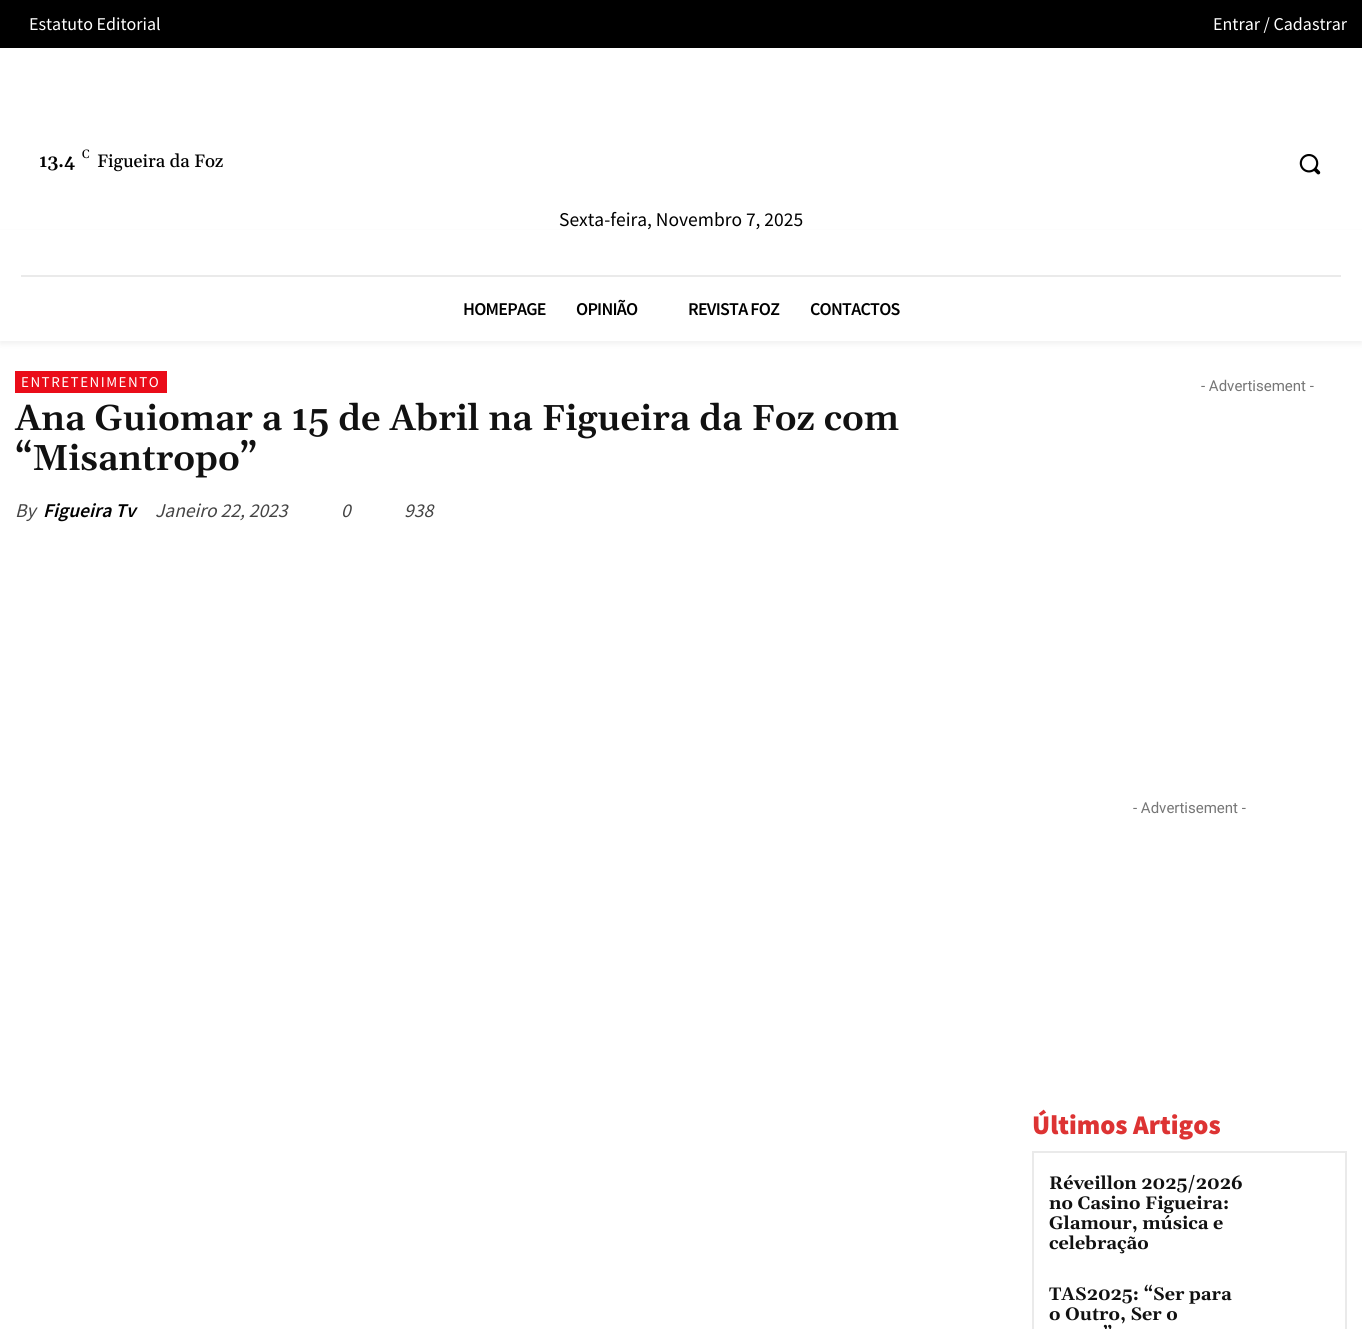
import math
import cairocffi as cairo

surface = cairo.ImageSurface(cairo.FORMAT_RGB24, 1362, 1329)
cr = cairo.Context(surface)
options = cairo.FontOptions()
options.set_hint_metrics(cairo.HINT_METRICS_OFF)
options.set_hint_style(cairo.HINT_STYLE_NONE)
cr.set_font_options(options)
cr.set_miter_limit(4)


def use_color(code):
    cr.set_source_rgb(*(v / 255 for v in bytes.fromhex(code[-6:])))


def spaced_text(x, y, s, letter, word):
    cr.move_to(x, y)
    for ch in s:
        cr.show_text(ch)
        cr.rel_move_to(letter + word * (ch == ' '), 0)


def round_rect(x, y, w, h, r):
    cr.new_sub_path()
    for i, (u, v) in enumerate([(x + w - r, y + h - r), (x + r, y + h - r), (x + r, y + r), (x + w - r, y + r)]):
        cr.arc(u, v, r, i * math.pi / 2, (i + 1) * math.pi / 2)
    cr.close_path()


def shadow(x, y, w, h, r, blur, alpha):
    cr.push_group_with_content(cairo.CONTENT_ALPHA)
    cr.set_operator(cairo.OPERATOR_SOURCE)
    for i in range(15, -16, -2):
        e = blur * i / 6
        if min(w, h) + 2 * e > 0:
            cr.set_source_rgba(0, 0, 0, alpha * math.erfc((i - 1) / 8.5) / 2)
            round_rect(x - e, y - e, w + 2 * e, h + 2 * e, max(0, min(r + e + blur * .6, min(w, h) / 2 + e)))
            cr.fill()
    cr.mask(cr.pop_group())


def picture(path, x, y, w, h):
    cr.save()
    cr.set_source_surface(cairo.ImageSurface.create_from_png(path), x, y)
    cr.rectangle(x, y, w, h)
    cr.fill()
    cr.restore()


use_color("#ffffff")
cr.paint()
use_color("#000000")
cr.rectangle(0, 0, 1362, 48)
cr.fill()
cr.select_font_face("Source Sans Pro")
cr.set_font_size(18)
use_color("#ffffff")
cr.move_to(29, 30)
cr.show_text("Estatuto Editorial")
cr.move_to(1213, 30)
cr.show_text("Entrar / Cadastrar")
cr.select_font_face("Gelasio")
cr.set_font_size(12)
use_color("#000000")
cr.move_to(82, 158)
cr.show_text("C")
cr.select_font_face("Gelasio SemiBold")
cr.set_font_size(18)
cr.move_to(39, 167)
cr.show_text("13.4")
cr.select_font_face("Gelasio Medium")
cr.move_to(97, 167)
cr.show_text("Figueira da Foz")
picture("img1.png", 1299, 154, 22, 21)
cr.select_font_face("Source Sans Pro")
cr.set_font_size(19.5)
cr.move_to(559, 226)
cr.show_text("Sexta-feira, Novembro 7, 2025")
use_color("#eaeaea")
cr.rectangle(21, 275, 1320, 2)
cr.fill()
cr.save()
cr.set_fill_rule(cairo.FILL_RULE_EVEN_ODD)
cr.new_path()
cr.move_to(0, 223)
cr.line_to(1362, 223)
cr.line_to(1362, 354)
cr.line_to(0, 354)
cr.close_path()
cr.move_to(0, 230)
cr.line_to(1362, 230)
cr.line_to(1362, 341)
cr.line_to(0, 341)
cr.close_path()
cr.clip()
use_color("#000000")
shadow(0, 233, 1362, 111, 0, 3, 0.06)
cr.restore()
cr.select_font_face("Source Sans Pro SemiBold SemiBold")
cr.set_font_size(18)
use_color("#000000")
spaced_text(463, 315, "HOMEPAGE", -0.75, 0)
spaced_text(576, 315, "OPINIÃO", -0.75, 0)
spaced_text(688, 315, "REVISTA FOZ", -0.75, 0)
spaced_text(810, 315, "CONTACTOS", -0.75, 0)
use_color("#ea0c19")
cr.rectangle(15, 371, 152, 22)
cr.fill()
cr.select_font_face("Source Sans Pro")
cr.set_font_size(15)
use_color("#ffffff")
spaced_text(21, 387, "ENTRETENIMENTO", 1.5, 0)
cr.select_font_face("Gelasio SemiBold")
cr.set_font_size(36)
use_color("#111111")
cr.move_to(15, 430)
cr.show_text("Ana Guiomar a 15 de Abril na Figueira da Foz com")
cr.move_to(15, 470)
cr.show_text("“Misantropo”")
cr.select_font_face("Source Sans Pro", cairo.FONT_SLANT_ITALIC)
cr.set_font_size(19.5)
use_color("#444444")
cr.move_to(15, 517)
cr.show_text("By")
cr.select_font_face("Source Sans Pro SemiBold SemiBold", cairo.FONT_SLANT_ITALIC)
use_color("#000000")
cr.move_to(43, 517)
cr.show_text("Figueira Tv")
cr.select_font_face("Source Sans Pro", cairo.FONT_SLANT_ITALIC)
use_color("#444444")
cr.move_to(155, 517)
cr.show_text("Janeiro 22, 2023")
cr.move_to(341, 517)
cr.show_text("0")
cr.move_to(404, 517)
cr.show_text("938")
cr.select_font_face("Roboto")
cr.set_font_size(15)
use_color("#767676")
cr.move_to(1201, 391)
cr.show_text("- Advertisement -")
cr.move_to(1133, 813)
cr.show_text("- Advertisement -")
cr.select_font_face("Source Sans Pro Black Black")
cr.set_font_size(27)
use_color("#dd3333")
cr.move_to(1032, 1134)
cr.show_text("Últimos Artigos")
cr.rectangle(1033, 1152, 313, 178)
use_color("#eaeaea")
cr.stroke()
cr.select_font_face("Gelasio", cairo.FONT_SLANT_NORMAL, cairo.FONT_WEIGHT_BOLD)
cr.set_font_size(18)
use_color("#111111")
cr.move_to(1049, 1189)
cr.show_text("Réveillon 2025/2026")
cr.move_to(1049, 1209)
cr.show_text("no Casino Figueira:")
cr.move_to(1049, 1229)
cr.show_text("Glamour, música e")
cr.move_to(1049, 1249)
cr.show_text("celebração")
cr.move_to(1049, 1300)
cr.show_text("TAS2025: “Ser para")
cr.move_to(1049, 1320)
cr.show_text("o Outro, Ser o")
cr.move_to(1103, 1340)
cr.show_text("”")
surface.write_to_png("result.png")
